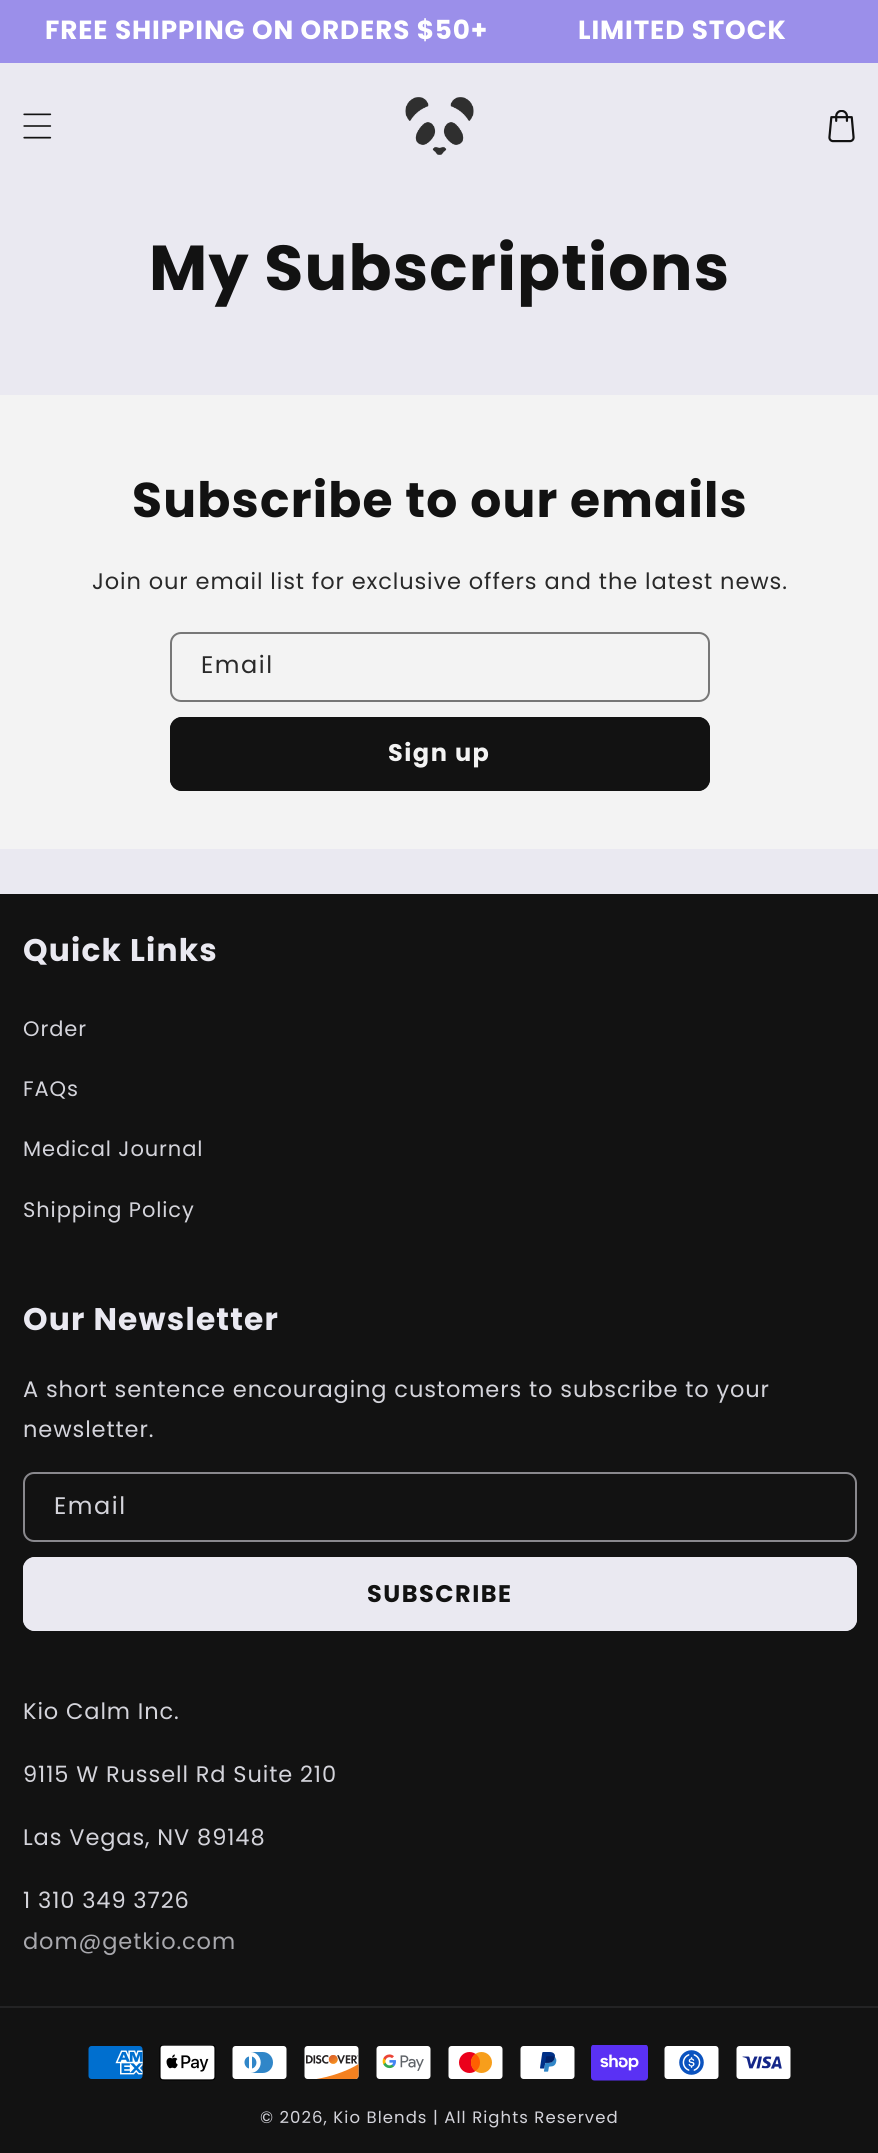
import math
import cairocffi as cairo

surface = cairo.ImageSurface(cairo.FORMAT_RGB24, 878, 2153)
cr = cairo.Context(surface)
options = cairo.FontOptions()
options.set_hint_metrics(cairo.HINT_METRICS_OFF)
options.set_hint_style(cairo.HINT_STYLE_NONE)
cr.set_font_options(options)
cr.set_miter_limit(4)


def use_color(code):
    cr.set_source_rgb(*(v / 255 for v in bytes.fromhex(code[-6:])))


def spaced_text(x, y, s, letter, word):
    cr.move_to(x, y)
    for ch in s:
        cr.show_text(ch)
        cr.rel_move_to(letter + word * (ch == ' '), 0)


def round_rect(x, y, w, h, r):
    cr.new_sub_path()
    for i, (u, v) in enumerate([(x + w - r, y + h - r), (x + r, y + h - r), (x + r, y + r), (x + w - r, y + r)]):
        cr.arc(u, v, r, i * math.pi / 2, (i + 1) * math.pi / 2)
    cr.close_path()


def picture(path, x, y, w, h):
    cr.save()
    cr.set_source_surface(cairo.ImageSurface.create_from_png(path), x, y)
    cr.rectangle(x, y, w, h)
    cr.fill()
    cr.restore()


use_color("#eae9f1")
cr.paint()
use_color("#9b8fea")
cr.rectangle(0, 0, 878, 63)
cr.fill()
cr.select_font_face("Poppins", cairo.FONT_SLANT_NORMAL, cairo.FONT_WEIGHT_BOLD)
cr.set_font_size(26.25)
use_color("#ffffff")
spaced_text(45, 39, "FREE SHIPPING ON ORDERS $50+", 0.9, 0)
spaced_text(578, 39, "LIMITED STOCK", 0.9, 0)
picture("img1.png", 23, 113, 29, 26)
picture("img2.png", 405, 97, 69, 58)
picture("img3.png", 828, 110, 27, 33)
cr.set_font_size(63.4)
use_color("#121212")
spaced_text(149, 290, "My Subscriptions", 1.2, 0)
use_color("#f3f3f3")
cr.rectangle(0, 395, 878, 454)
cr.fill()
cr.set_font_size(48.75)
use_color("#121212")
spaced_text(132, 517, "Subscribe to our emails", 1.2, 0)
cr.select_font_face("Poppins")
cr.set_font_size(22.5)
use_color("#292929")
spaced_text(92, 589, "Join our email list for exclusive offers and the latest news.", 0.9, 0)
round_rect(171, 633, 538, 68, 10)
use_color("#777777")
cr.stroke()
cr.set_font_size(24)
use_color("#292929")
spaced_text(201, 673, "Email", 1.5, 0)
use_color("#121212")
round_rect(170, 717, 540, 74, 12)
cr.fill()
round_rect(171.5, 718.5, 537, 71, 10.5)
cr.set_line_width(3)
cr.stroke()
cr.select_font_face("Poppins", cairo.FONT_SLANT_NORMAL, cairo.FONT_WEIGHT_BOLD)
use_color("#f3f3f3")
spaced_text(388, 761, "Sign up", 1.5, 0)
use_color("#121212")
cr.rectangle(0, 894, 878, 1259)
cr.fill()
cr.set_font_size(31.25)
use_color("#eae9f1")
spaced_text(23, 961, "Quick Links", 1.2, 0)
cr.select_font_face("Poppins")
cr.set_font_size(21)
use_color("#d4d4db")
spaced_text(23, 1036, "Order", 0.9, 0)
spaced_text(23, 1096, "FAQs", 0.9, 0)
spaced_text(23, 1156, "Medical Journal", 0.9, 0)
spaced_text(23, 1217, "Shipping Policy", 0.9, 0)
cr.select_font_face("Poppins", cairo.FONT_SLANT_NORMAL, cairo.FONT_WEIGHT_BOLD)
cr.set_font_size(31.25)
use_color("#eae9f1")
spaced_text(23, 1330, "Our Newsletter", 1.2, 0)
cr.select_font_face("Poppins")
cr.set_font_size(22.5)
use_color("#d4d4db")
spaced_text(23, 1397, "A short sentence encouraging customers to subscribe to your", 0.9, 0)
spaced_text(23, 1437, "newsletter.", 0.9, 0)
round_rect(24, 1473, 832, 68, 10)
use_color("#89888d")
cr.set_line_width(2)
cr.stroke()
cr.set_font_size(24)
use_color("#d4d4db")
spaced_text(54, 1514, "Email", 1.5, 0)
use_color("#eae9f1")
round_rect(23, 1557, 834, 74, 12)
cr.fill()
round_rect(24.5, 1558.5, 831, 71, 10.5)
cr.set_line_width(3)
cr.stroke()
cr.select_font_face("Poppins", cairo.FONT_SLANT_NORMAL, cairo.FONT_WEIGHT_BOLD)
use_color("#121212")
spaced_text(367, 1602, "SUBSCRIBE", 1.5, 0)
cr.select_font_face("Poppins")
cr.set_font_size(22.5)
use_color("#d4d4db")
spaced_text(23, 1719, "Kio Calm Inc.", 0.9, 0)
spaced_text(23, 1782, "9115 W Russell Rd Suite 210", 0.9, 0)
spaced_text(23, 1845, "Las Vegas, NV 89148", 0.9, 0)
spaced_text(23, 1908, "1 310 349 3726", 0.9, 0)
use_color("#a9a9ae")
spaced_text(23, 1949, "dom@getkio.com", 0.9, 0)
use_color("#232324")
cr.rectangle(0, 2006, 878, 2)
cr.fill()
picture("img4.png", 88, 2046, 55, 33)
picture("img5.png", 159, 2045, 57, 36)
picture("img6.png", 232, 2046, 55, 33)
picture("img7.png", 304, 2046, 55, 33)
picture("img8.png", 376, 2046, 55, 33)
picture("img9.png", 448, 2046, 55, 33)
picture("img10.png", 520, 2046, 55, 33)
picture("img11.png", 591, 2045, 57, 36)
picture("img12.png", 664, 2046, 55, 33)
picture("img13.png", 736, 2046, 55, 33)
cr.set_font_size(16.5)
use_color("#d4d4db")
spaced_text(260, 2123, "© 2026, Kio Blends", 1.05, 0)
spaced_text(433, 2123, "| All Rights Reserved", 1.05, 0)
surface.write_to_png("result.png")
